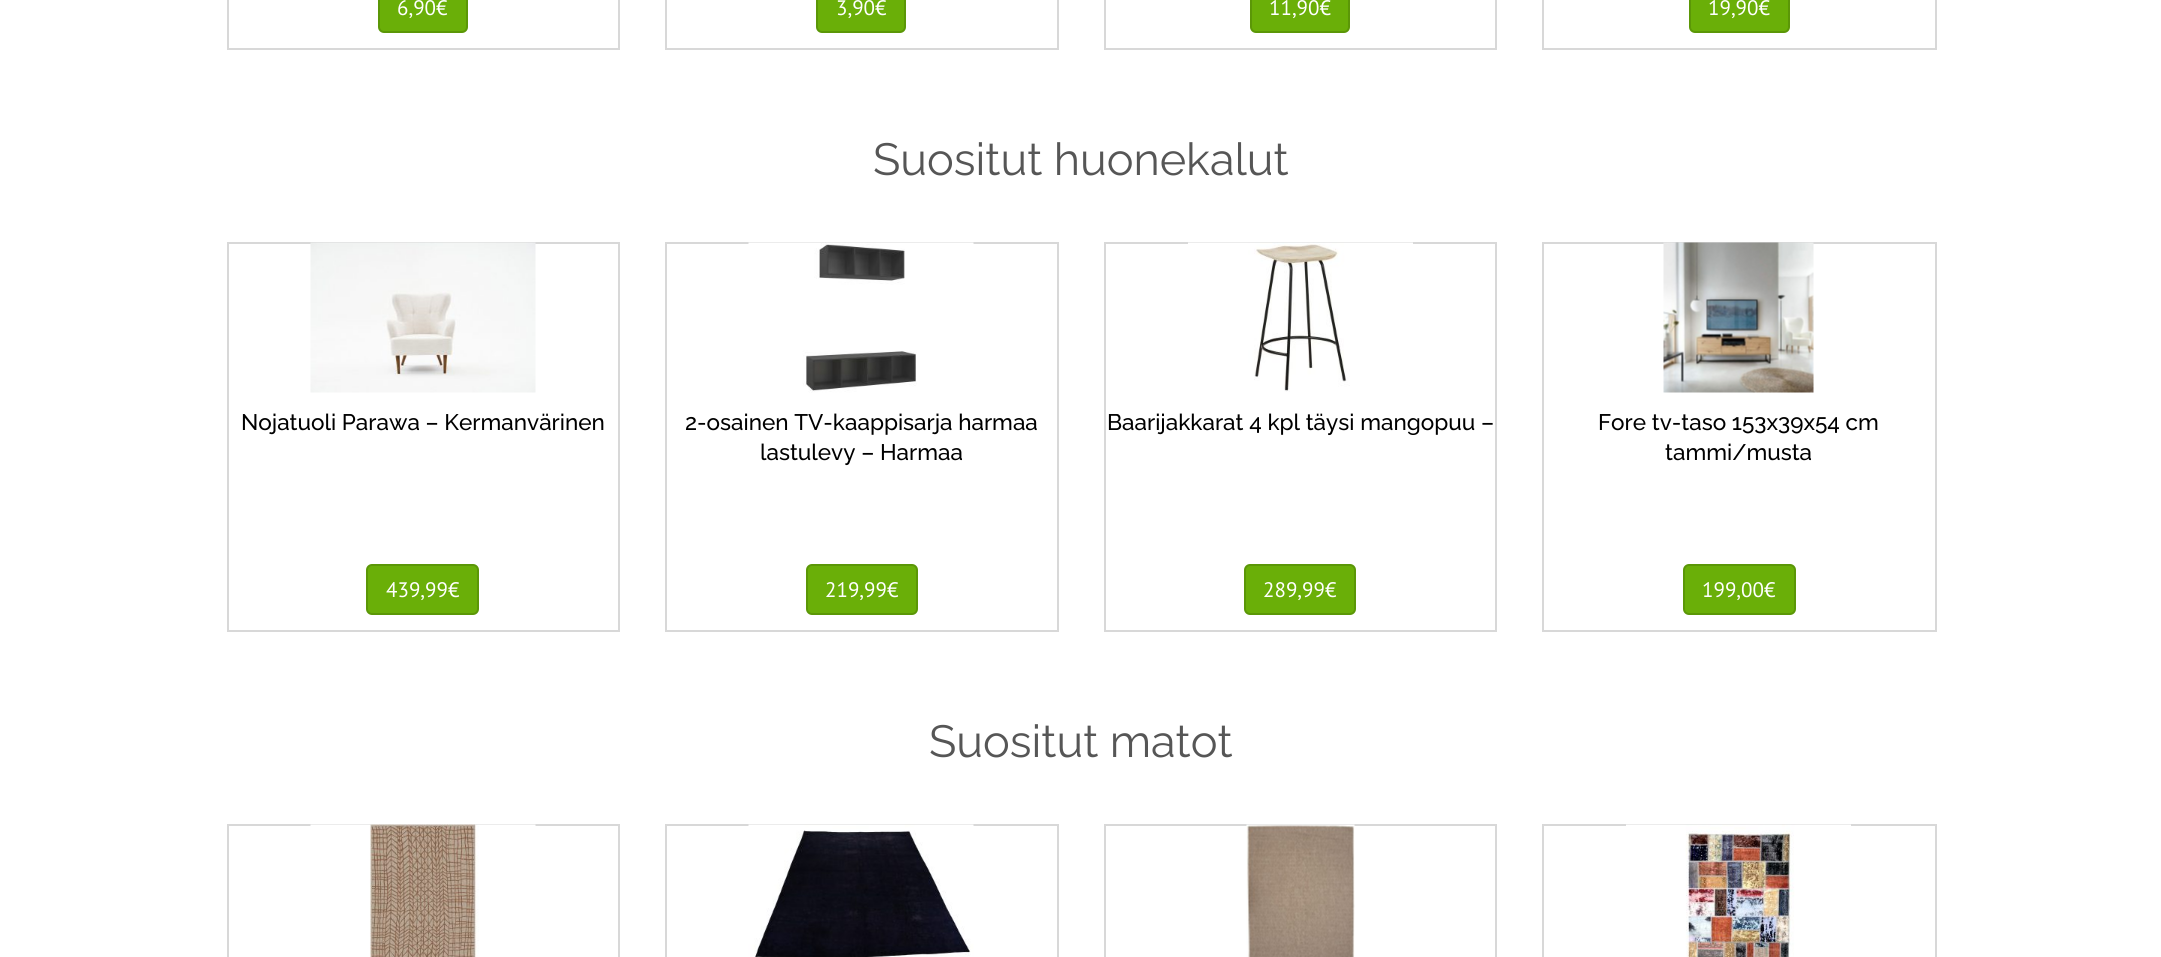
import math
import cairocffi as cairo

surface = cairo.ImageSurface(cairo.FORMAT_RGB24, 2161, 957)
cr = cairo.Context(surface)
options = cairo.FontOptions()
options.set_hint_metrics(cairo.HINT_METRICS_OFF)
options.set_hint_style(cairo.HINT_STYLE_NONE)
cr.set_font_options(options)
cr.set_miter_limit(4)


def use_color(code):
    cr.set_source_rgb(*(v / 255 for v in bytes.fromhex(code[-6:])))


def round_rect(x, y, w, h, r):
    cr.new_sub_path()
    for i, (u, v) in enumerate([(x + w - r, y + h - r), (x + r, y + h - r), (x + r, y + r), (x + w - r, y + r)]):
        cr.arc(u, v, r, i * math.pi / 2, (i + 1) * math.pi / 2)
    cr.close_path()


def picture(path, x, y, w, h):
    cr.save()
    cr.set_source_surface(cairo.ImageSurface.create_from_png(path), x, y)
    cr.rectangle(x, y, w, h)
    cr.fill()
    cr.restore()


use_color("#ffffff")
cr.paint()
cr.rectangle(228, -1, 391, 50)
use_color("#d8d8d8")
cr.stroke()
use_color("#6aaf08")
round_rect(379, -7, 88, 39, 5)
cr.fill_preserve()
use_color("#5b9707")
cr.stroke()
cr.select_font_face("PT Sans")
cr.set_font_size(21)
use_color("#ffffff")
cr.move_to(397, 15)
cr.show_text("6,90€")
cr.rectangle(666, -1, 392, 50)
use_color("#d8d8d8")
cr.stroke()
use_color("#6aaf08")
round_rect(817, -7, 88, 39, 5)
cr.fill_preserve()
use_color("#5b9707")
cr.stroke()
use_color("#ffffff")
cr.move_to(836, 15)
cr.show_text("3,90€")
cr.rectangle(1105, -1, 391, 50)
use_color("#d8d8d8")
cr.stroke()
use_color("#6aaf08")
round_rect(1251, -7, 98, 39, 5)
cr.fill_preserve()
use_color("#5b9707")
cr.stroke()
use_color("#ffffff")
cr.move_to(1269, 15)
cr.show_text("11,90€")
cr.rectangle(1543, -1, 393, 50)
use_color("#d8d8d8")
cr.stroke()
use_color("#6aaf08")
round_rect(1690, -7, 99, 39, 5)
cr.fill_preserve()
use_color("#5b9707")
cr.stroke()
use_color("#ffffff")
cr.move_to(1708, 15)
cr.show_text("19,90€")
cr.select_font_face("Raleway")
cr.set_font_size(45)
use_color("#565656")
cr.move_to(873, 175)
cr.show_text("Suositut huonekalut")
cr.rectangle(228, 243, 391, 388)
use_color("#d8d8d8")
cr.stroke()
picture("img1.png", 310, 242, 226, 151)
cr.select_font_face("Raleway Medium")
cr.set_font_size(22.5)
use_color("#000000")
cr.move_to(241, 430)
cr.show_text("Nojatuoli Parawa – Kermanvärinen")
use_color("#6aaf08")
round_rect(367, 565, 111, 49, 5)
cr.fill_preserve()
use_color("#5b9707")
cr.stroke()
cr.select_font_face("PT Sans")
cr.set_font_size(21)
use_color("#ffffff")
cr.move_to(386, 597)
cr.show_text("439,99€")
cr.rectangle(666, 243, 392, 388)
use_color("#d8d8d8")
cr.stroke()
picture("img2.png", 748, 242, 226, 151)
cr.select_font_face("Raleway Medium")
cr.set_font_size(22.5)
use_color("#000000")
cr.move_to(685, 430)
cr.show_text("2-osainen TV-kaappisarja harmaa")
cr.move_to(760, 460)
cr.show_text("lastulevy – Harmaa")
use_color("#6aaf08")
round_rect(807, 565, 110, 49, 5)
cr.fill_preserve()
use_color("#5b9707")
cr.stroke()
cr.select_font_face("PT Sans")
cr.set_font_size(21)
use_color("#ffffff")
cr.move_to(825, 597)
cr.show_text("219,99€")
cr.rectangle(1105, 243, 391, 388)
use_color("#d8d8d8")
cr.stroke()
picture("img3.png", 1188, 242, 225, 150)
cr.select_font_face("Raleway Medium")
cr.set_font_size(22.5)
use_color("#000000")
cr.move_to(1107, 430)
cr.show_text("Baarijakkarat 4 kpl täysi mangopuu –")
use_color("#6aaf08")
round_rect(1245, 565, 110, 49, 5)
cr.fill_preserve()
use_color("#5b9707")
cr.stroke()
cr.select_font_face("PT Sans")
cr.set_font_size(21)
use_color("#ffffff")
cr.move_to(1263, 597)
cr.show_text("289,99€")
cr.rectangle(1543, 243, 393, 388)
use_color("#d8d8d8")
cr.stroke()
picture("img4.png", 1663, 242, 151, 151)
cr.select_font_face("Raleway Medium")
cr.set_font_size(22.5)
use_color("#000000")
cr.move_to(1598, 430)
cr.show_text("Fore tv-taso 153x39x54 cm")
cr.move_to(1665, 460)
cr.show_text("tammi/musta")
use_color("#6aaf08")
round_rect(1684, 565, 111, 49, 5)
cr.fill_preserve()
use_color("#5b9707")
cr.stroke()
cr.select_font_face("PT Sans")
cr.set_font_size(21)
use_color("#ffffff")
cr.move_to(1702, 597)
cr.show_text("199,00€")
cr.select_font_face("Raleway")
cr.set_font_size(45)
use_color("#565656")
cr.move_to(929, 757)
cr.show_text("Suositut matot")
cr.rectangle(228, 825, 391, 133)
use_color("#d8d8d8")
cr.stroke()
picture("img5.png", 310, 824, 226, 133)
cr.rectangle(666, 825, 392, 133)
cr.stroke()
picture("img6.png", 748, 824, 226, 133)
cr.rectangle(1105, 825, 391, 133)
cr.stroke()
picture("img7.png", 1246, 824, 109, 133)
cr.rectangle(1543, 825, 393, 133)
cr.stroke()
picture("img8.png", 1626, 824, 225, 133)
surface.write_to_png("result.png")
